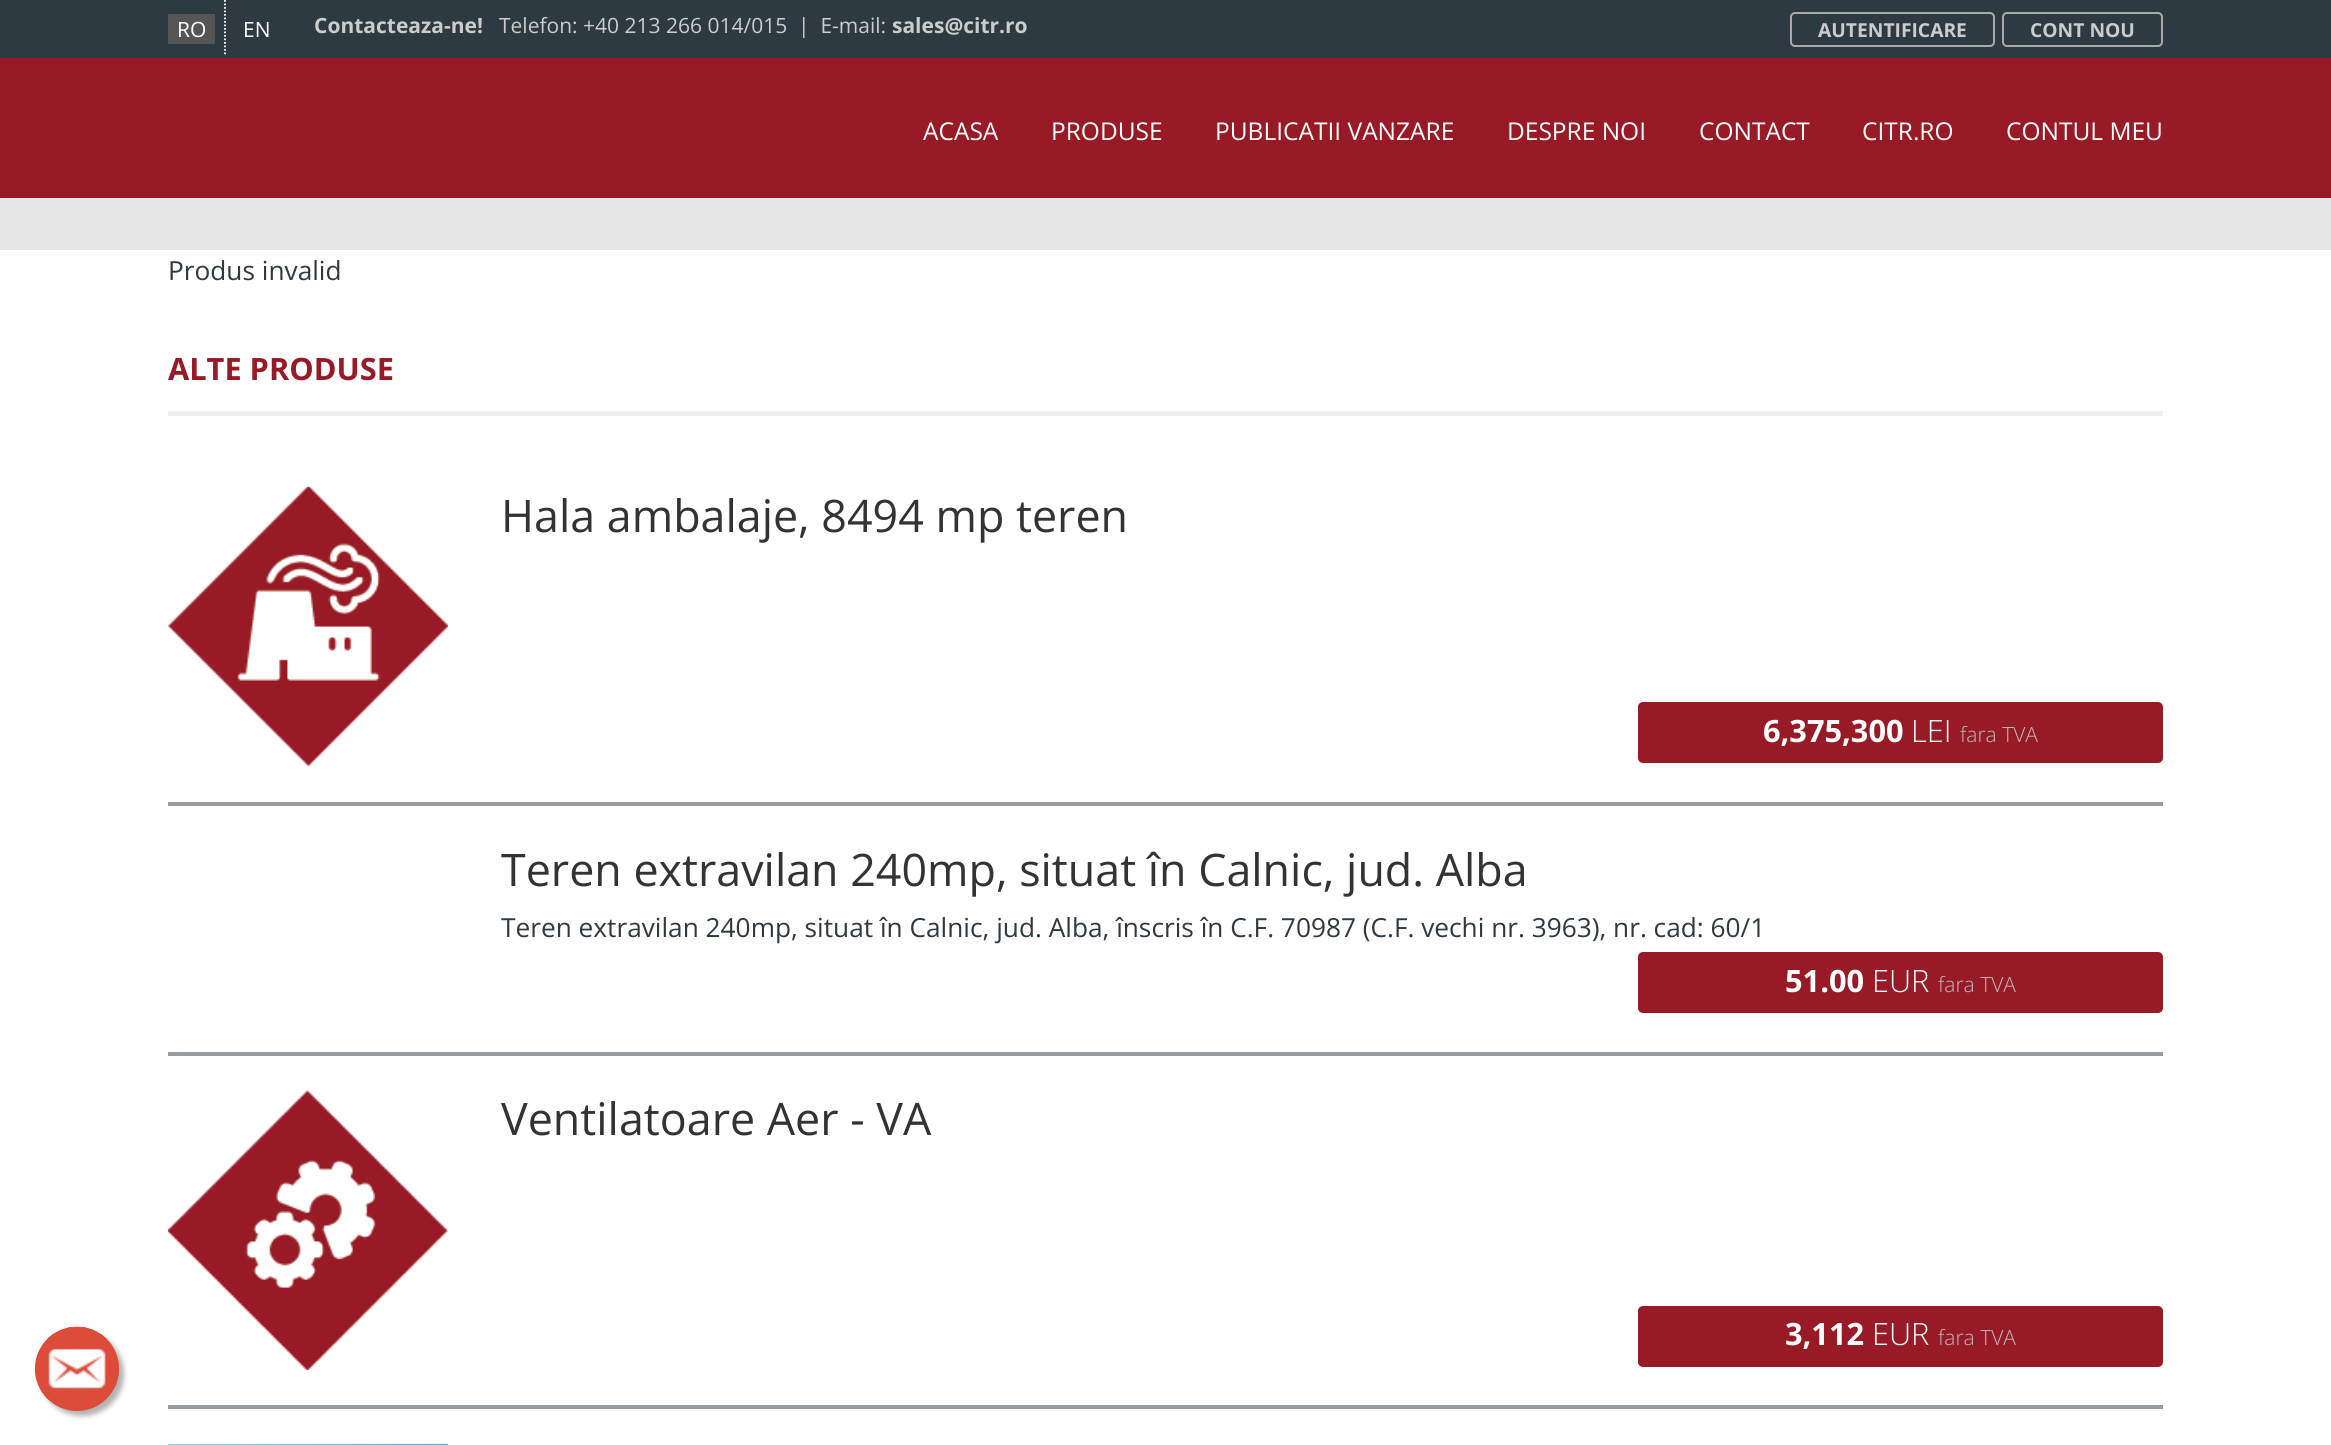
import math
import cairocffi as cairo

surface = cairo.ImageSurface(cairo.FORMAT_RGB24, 2331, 1445)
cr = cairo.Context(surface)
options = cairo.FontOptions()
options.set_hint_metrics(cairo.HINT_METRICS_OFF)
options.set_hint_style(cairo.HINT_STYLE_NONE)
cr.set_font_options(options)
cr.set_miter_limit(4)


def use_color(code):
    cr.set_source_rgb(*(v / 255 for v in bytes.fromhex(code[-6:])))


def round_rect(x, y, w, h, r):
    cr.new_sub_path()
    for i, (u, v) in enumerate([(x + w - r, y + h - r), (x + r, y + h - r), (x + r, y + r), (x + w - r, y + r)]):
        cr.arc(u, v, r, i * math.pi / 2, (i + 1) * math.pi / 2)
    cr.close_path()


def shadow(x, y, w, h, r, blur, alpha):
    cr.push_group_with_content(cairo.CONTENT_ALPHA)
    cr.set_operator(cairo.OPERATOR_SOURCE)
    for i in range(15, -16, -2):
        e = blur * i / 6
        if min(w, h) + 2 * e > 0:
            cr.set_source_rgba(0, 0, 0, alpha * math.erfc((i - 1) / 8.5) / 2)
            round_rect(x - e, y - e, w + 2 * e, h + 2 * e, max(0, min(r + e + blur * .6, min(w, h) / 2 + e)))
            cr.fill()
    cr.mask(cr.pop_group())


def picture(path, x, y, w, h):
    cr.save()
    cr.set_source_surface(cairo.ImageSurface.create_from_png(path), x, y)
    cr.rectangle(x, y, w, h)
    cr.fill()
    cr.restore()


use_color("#e6e6e6")
cr.paint()
use_color("#2d3a41")
cr.rectangle(0, 0, 2331, 58)
cr.fill()
cr.new_path()
cr.move_to(225, 0)
cr.line_to(225, 56)
use_color("#ffffff")
cr.set_line_width(1.8)
cr.set_dash([1.75, 1.75])
cr.stroke()
use_color("#555555")
cr.rectangle(168, 14, 47, 30)
cr.fill()
cr.select_font_face("Open Sans")
cr.set_font_size(21)
use_color("#ffffff")
cr.move_to(177, 37)
cr.show_text("RO")
cr.move_to(243, 37)
cr.show_text("EN")
cr.select_font_face("Open Sans", cairo.FONT_SLANT_NORMAL, cairo.FONT_WEIGHT_BOLD)
use_color("#cccccc")
cr.move_to(314, 33)
cr.show_text("Contacteaza-ne!")
cr.select_font_face("Open Sans")
cr.move_to(499, 33)
cr.show_text("Telefon: +40 213 266 014/015")
cr.move_to(798, 33)
cr.show_text("|  E-mail:")
cr.select_font_face("Open Sans", cairo.FONT_SLANT_NORMAL, cairo.FONT_WEIGHT_BOLD)
cr.move_to(892, 33)
cr.show_text("sales@citr.ro")
round_rect(1791, 13, 203, 33, 4)
use_color("#aaaaaa")
cr.set_line_width(2)
cr.set_dash([])
cr.stroke()
cr.set_font_size(19.25)
use_color("#cccccc")
cr.move_to(1818, 37)
cr.show_text("AUTENTIFICARE")
round_rect(2003, 13, 159, 33, 4)
use_color("#aaaaaa")
cr.stroke()
use_color("#cccccc")
cr.move_to(2030, 37)
cr.show_text("CONT NOU")
use_color("#981a26")
cr.rectangle(0, 58, 2331, 140)
cr.fill()
cr.select_font_face("Open Sans")
cr.set_font_size(24.5)
use_color("#ffffff")
cr.move_to(923, 140)
cr.show_text("ACASA")
cr.move_to(1051, 140)
cr.show_text("PRODUSE")
cr.move_to(1215, 140)
cr.show_text("PUBLICATII VANZARE")
cr.move_to(1507, 140)
cr.show_text("DESPRE NOI")
cr.move_to(1699, 140)
cr.show_text("CONTACT")
cr.move_to(1862, 140)
cr.show_text("CITR.RO")
cr.move_to(2006, 140)
cr.show_text("CONTUL MEU")
cr.rectangle(0, 250, 2331, 1195)
cr.fill()
cr.set_font_size(26.25)
use_color("#2d3a41")
cr.move_to(168, 280)
cr.show_text("Produs invalid")
use_color("#eeeeee")
cr.rectangle(168, 411, 1995, 5)
cr.fill()
cr.select_font_face("Open Sans", cairo.FONT_SLANT_NORMAL, cairo.FONT_WEIGHT_BOLD)
cr.set_font_size(30.75)
use_color("#981a26")
cr.move_to(168, 380)
cr.show_text("ALTE PRODUSE")
use_color("#969ca0")
cr.rectangle(168, 802, 1995, 4)
cr.fill()
picture("img1.png", 168, 486, 280, 281)
cr.select_font_face("Open Sans")
cr.set_font_size(44.8)
use_color("#333333")
cr.move_to(501, 532)
cr.show_text("Hala ambalaje, 8494 mp teren")
use_color("#981a26")
round_rect(1638, 702, 525, 61, 5)
cr.fill()
cr.select_font_face("Open Sans", cairo.FONT_SLANT_NORMAL, cairo.FONT_WEIGHT_BOLD)
cr.set_font_size(30.75)
use_color("#ffffff")
cr.move_to(1763, 742)
cr.show_text("6,375,300")
cr.select_font_face("Open Sans Light")
cr.move_to(1911, 742)
cr.show_text("LEI")
cr.set_font_size(21)
use_color("#bbbbbb")
cr.move_to(1960, 742)
cr.show_text("fara TVA")
use_color("#969ca0")
cr.rectangle(168, 1052, 1995, 4)
cr.fill()
cr.save()
cr.rectangle(501, 840, 1662, 177)
cr.clip()
cr.select_font_face("Open Sans")
cr.set_font_size(44.8)
use_color("#333333")
cr.move_to(501, 886)
cr.show_text("Teren extravilan 240mp, situat în Calnic, jud. Alba")
cr.restore()
cr.select_font_face("Open Sans")
cr.set_font_size(26.25)
use_color("#2d3a41")
cr.move_to(501, 937)
cr.show_text("Teren extravilan 240mp, situat în Calnic, jud. Alba, înscris în C.F. 70987 (C.F. vechi nr. 3963), nr. cad: 60/1")
use_color("#981a26")
round_rect(1638, 952, 525, 61, 5)
cr.fill()
cr.select_font_face("Open Sans", cairo.FONT_SLANT_NORMAL, cairo.FONT_WEIGHT_BOLD)
cr.set_font_size(30.75)
use_color("#ffffff")
cr.move_to(1785, 992)
cr.show_text("51.00")
cr.select_font_face("Open Sans Light")
cr.move_to(1872, 992)
cr.show_text("EUR")
cr.set_font_size(21)
use_color("#bbbbbb")
cr.move_to(1938, 992)
cr.show_text("fara TVA")
use_color("#969ca0")
cr.rectangle(168, 1405, 1995, 4)
cr.fill()
picture("img2.png", 168, 1090, 280, 281)
cr.select_font_face("Open Sans")
cr.set_font_size(44.8)
use_color("#333333")
cr.move_to(501, 1135)
cr.show_text("Ventilatoare Aer - VA")
use_color("#981a26")
round_rect(1638, 1306, 525, 61, 5)
cr.fill()
cr.select_font_face("Open Sans", cairo.FONT_SLANT_NORMAL, cairo.FONT_WEIGHT_BOLD)
cr.set_font_size(30.75)
use_color("#ffffff")
cr.move_to(1785, 1345)
cr.show_text("3,112")
cr.select_font_face("Open Sans Light")
cr.move_to(1872, 1345)
cr.show_text("EUR")
cr.set_font_size(21)
use_color("#bbbbbb")
cr.move_to(1938, 1345)
cr.show_text("fara TVA")
picture("img3.png", 168, 1443, 280, 2)
use_color("#000000")
shadow(40, 1332, 84, 84, 42, 2.5, 0.3)
use_color("#dd4b39")
cr.arc(77, 1369, 42, 0, 2 * math.pi)
cr.fill()
picture("img4.png", 35, 1326, 84, 84)
surface.write_to_png("result.png")
